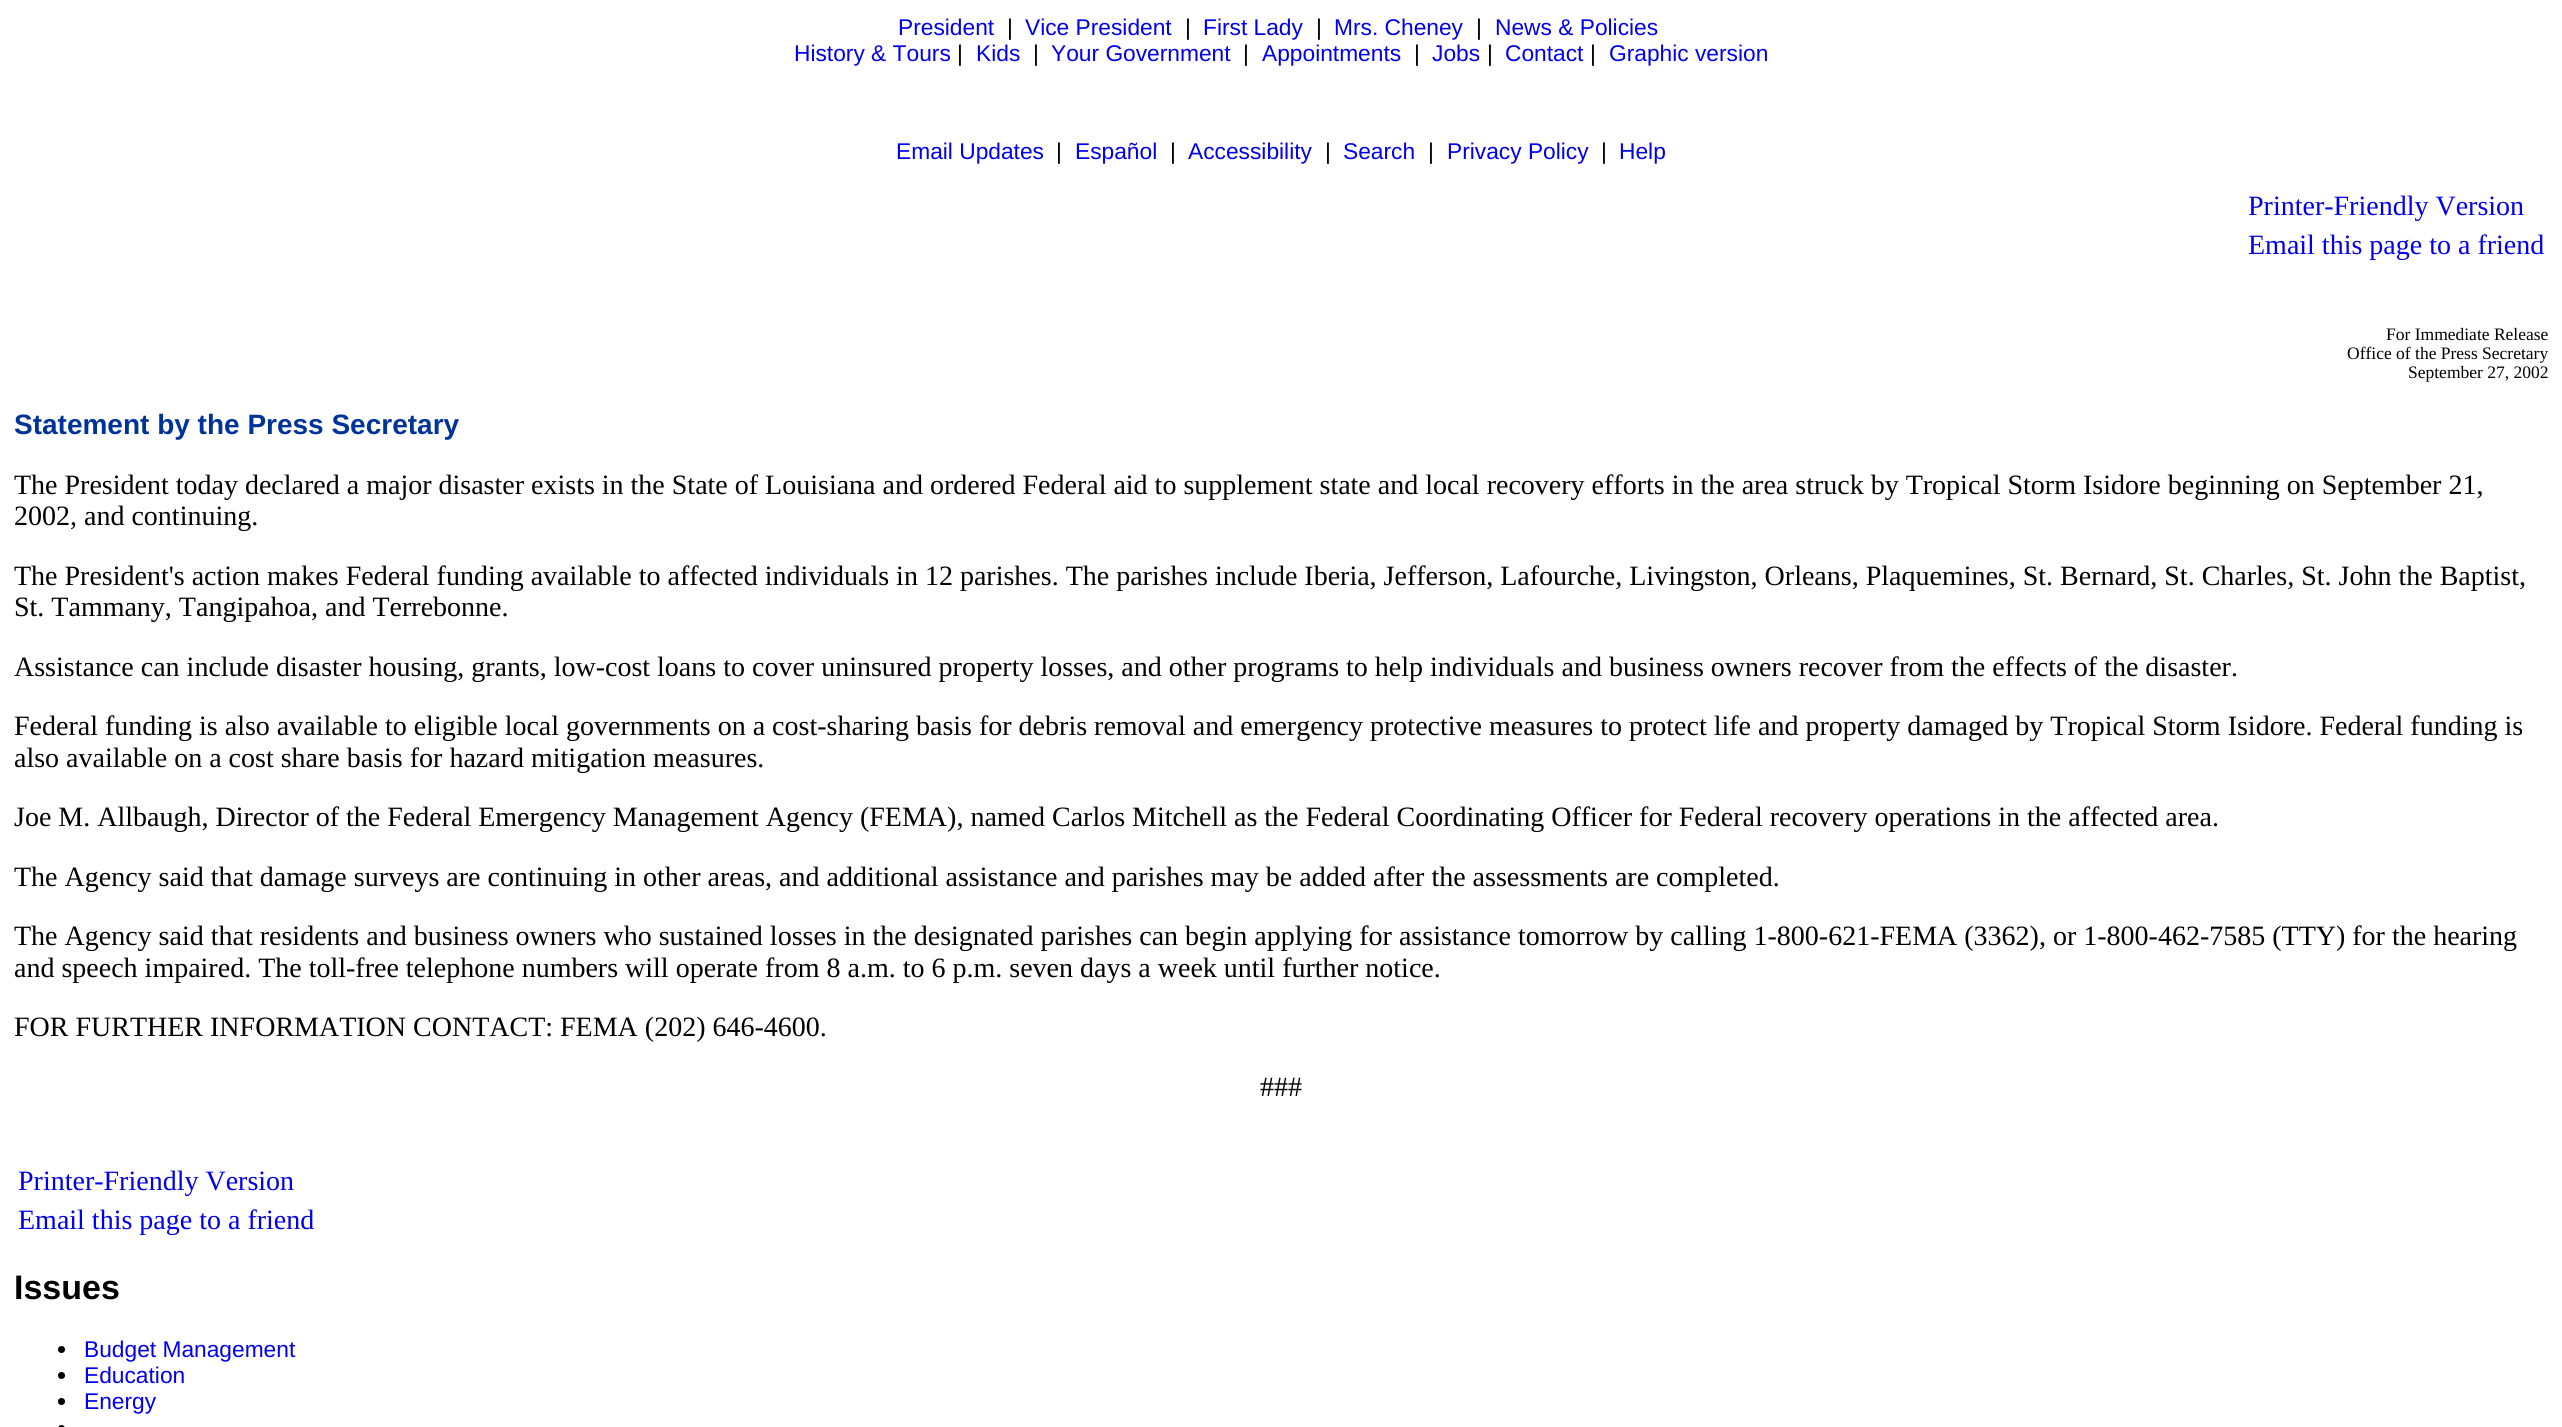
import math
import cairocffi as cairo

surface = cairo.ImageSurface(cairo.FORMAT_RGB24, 2562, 1427)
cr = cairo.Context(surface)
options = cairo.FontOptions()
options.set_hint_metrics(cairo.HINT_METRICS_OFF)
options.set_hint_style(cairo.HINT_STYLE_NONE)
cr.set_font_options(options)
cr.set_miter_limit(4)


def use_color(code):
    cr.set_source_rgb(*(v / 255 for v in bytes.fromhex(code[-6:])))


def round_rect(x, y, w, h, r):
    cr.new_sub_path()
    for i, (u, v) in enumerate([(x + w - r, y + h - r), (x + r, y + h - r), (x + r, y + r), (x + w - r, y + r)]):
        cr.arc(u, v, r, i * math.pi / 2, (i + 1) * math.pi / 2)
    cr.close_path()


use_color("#ffffff")
cr.paint()
cr.select_font_face("Liberation Sans")
cr.set_font_size(22.75)
use_color("#0000ee")
cr.move_to(898, 35)
cr.show_text("President")
use_color("#000000")
cr.move_to(1007, 35)
cr.show_text("|")
use_color("#0000ee")
cr.move_to(1025, 35)
cr.show_text("Vice President")
use_color("#000000")
cr.move_to(1185, 35)
cr.show_text("|")
use_color("#0000ee")
cr.move_to(1203, 35)
cr.show_text("First Lady")
use_color("#000000")
cr.move_to(1316, 35)
cr.show_text("|")
use_color("#0000ee")
cr.move_to(1334, 35)
cr.show_text("Mrs. Cheney")
use_color("#000000")
cr.move_to(1476, 35)
cr.show_text("|")
use_color("#0000ee")
cr.move_to(1495, 35)
cr.show_text("News & Policies")
cr.move_to(794, 61)
cr.show_text("History & Tours")
use_color("#000000")
cr.move_to(957, 61)
cr.show_text("|")
use_color("#0000ee")
cr.move_to(976, 61)
cr.show_text("Kids")
use_color("#000000")
cr.move_to(1033, 61)
cr.show_text("|")
use_color("#0000ee")
cr.move_to(1051, 61)
cr.show_text("Your Government")
use_color("#000000")
cr.move_to(1243, 61)
cr.show_text("|")
use_color("#0000ee")
cr.move_to(1262, 61)
cr.show_text("Appointments")
use_color("#000000")
cr.move_to(1414, 61)
cr.show_text("|")
use_color("#0000ee")
cr.move_to(1432, 61)
cr.show_text("Jobs")
use_color("#000000")
cr.move_to(1487, 61)
cr.show_text("|")
use_color("#0000ee")
cr.move_to(1505, 61)
cr.show_text("Contact")
use_color("#000000")
cr.move_to(1590, 61)
cr.show_text("|")
use_color("#0000ee")
cr.move_to(1609, 61)
cr.show_text("Graphic version")
cr.move_to(896, 159)
cr.show_text("Email Updates")
use_color("#000000")
cr.move_to(1056, 159)
cr.show_text("|")
use_color("#0000ee")
cr.move_to(1075, 159)
cr.show_text("Español")
use_color("#000000")
cr.move_to(1170, 159)
cr.show_text("|")
use_color("#0000ee")
cr.move_to(1188, 159)
cr.show_text("Accessibility")
use_color("#000000")
cr.move_to(1325, 159)
cr.show_text("|")
use_color("#0000ee")
cr.move_to(1343, 159)
cr.show_text("Search")
use_color("#000000")
cr.move_to(1428, 159)
cr.show_text("|")
use_color("#0000ee")
cr.move_to(1447, 159)
cr.show_text("Privacy Policy")
use_color("#000000")
cr.move_to(1601, 159)
cr.show_text("|")
use_color("#0000ee")
cr.move_to(1619, 159)
cr.show_text("Help")
cr.select_font_face("Liberation Serif")
cr.set_font_size(28)
cr.move_to(2248, 215)
cr.show_text("Printer-Friendly Version")
cr.move_to(2248, 254)
cr.show_text("Email this page to a friend")
cr.set_font_size(17.5)
use_color("#000000")
cr.move_to(2386, 340)
cr.show_text("For Immediate Release")
cr.move_to(2347, 359)
cr.show_text("Office of the Press Secretary")
cr.move_to(2408, 378)
cr.show_text("September 27, 2002")
cr.select_font_face("Liberation Sans", cairo.FONT_SLANT_NORMAL, cairo.FONT_WEIGHT_BOLD)
cr.set_font_size(28)
use_color("#003399")
cr.move_to(14, 434)
cr.show_text("Statement by the Press Secretary")
cr.select_font_face("Liberation Serif")
use_color("#000000")
cr.move_to(14, 494)
cr.show_text("The President today declared a major disaster exists in the State of Louisiana and ordered Federal aid to supplement state and local recovery efforts in the area struck by Tropical Storm Isidore beginning on September 21,")
cr.move_to(14, 525)
cr.show_text("2002, and continuing.")
cr.move_to(14, 585)
cr.show_text("The President's action makes Federal funding available to affected individuals in 12 parishes. The parishes include Iberia, Jefferson, Lafourche, Livingston, Orleans, Plaquemines, St. Bernard, St. Charles, St. John the Baptist,")
cr.move_to(14, 616)
cr.show_text("St. Tammany, Tangipahoa, and Terrebonne.")
cr.move_to(14, 676)
cr.show_text("Assistance can include disaster housing, grants, low-cost loans to cover uninsured property losses, and other programs to help individuals and business owners recover from the effects of the disaster.")
cr.move_to(14, 735)
cr.show_text("Federal funding is also available to eligible local governments on a cost-sharing basis for debris removal and emergency protective measures to protect life and property damaged by Tropical Storm Isidore. Federal funding is")
cr.move_to(14, 767)
cr.show_text("also available on a cost share basis for hazard mitigation measures.")
cr.move_to(14, 826)
cr.show_text("Joe M. Allbaugh, Director of the Federal Emergency Management Agency (FEMA), named Carlos Mitchell as the Federal Coordinating Officer for Federal recovery operations in the affected area.")
cr.move_to(14, 886)
cr.show_text("The Agency said that damage surveys are continuing in other areas, and additional assistance and parishes may be added after the assessments are completed.")
cr.move_to(14, 945)
cr.show_text("The Agency said that residents and business owners who sustained losses in the designated parishes can begin applying for assistance tomorrow by calling 1-800-621-FEMA (3362), or 1-800-462-7585 (TTY) for the hearing")
cr.move_to(14, 977)
cr.show_text("and speech impaired. The toll-free telephone numbers will operate from 8 a.m. to 6 p.m. seven days a week until further notice.")
cr.move_to(14, 1036)
cr.show_text("FOR FURTHER INFORMATION CONTACT: FEMA (202) 646-4600.")
cr.move_to(1260, 1096)
cr.show_text("###")
use_color("#0000ee")
cr.move_to(18, 1190)
cr.show_text("Printer-Friendly Version")
cr.move_to(18, 1229)
cr.show_text("Email this page to a friend")
cr.select_font_face("Liberation Sans", cairo.FONT_SLANT_NORMAL, cairo.FONT_WEIGHT_BOLD)
cr.set_font_size(34)
use_color("#000000")
cr.move_to(14, 1299)
cr.show_text("Issues")
cr.new_path()
cr.arc(61.5, 1349.5, 3.5, 0, 2 * math.pi)
cr.fill()
cr.select_font_face("Liberation Sans")
cr.set_font_size(22.75)
use_color("#0000ee")
cr.move_to(84, 1357)
cr.show_text("Budget Management")
use_color("#000000")
cr.new_path()
cr.arc(61.5, 1375.5, 3.5, 0, 2 * math.pi)
cr.fill()
use_color("#0000ee")
cr.move_to(84, 1383)
cr.show_text("Education")
use_color("#000000")
cr.new_path()
cr.arc(61.5, 1401.5, 3.5, 0, 2 * math.pi)
cr.fill()
use_color("#0000ee")
cr.move_to(84, 1409)
cr.show_text("Energy")
use_color("#000000")
round_rect(58, 1425, 7, 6, 3.5)
cr.fill()
surface.write_to_png("result.png")
